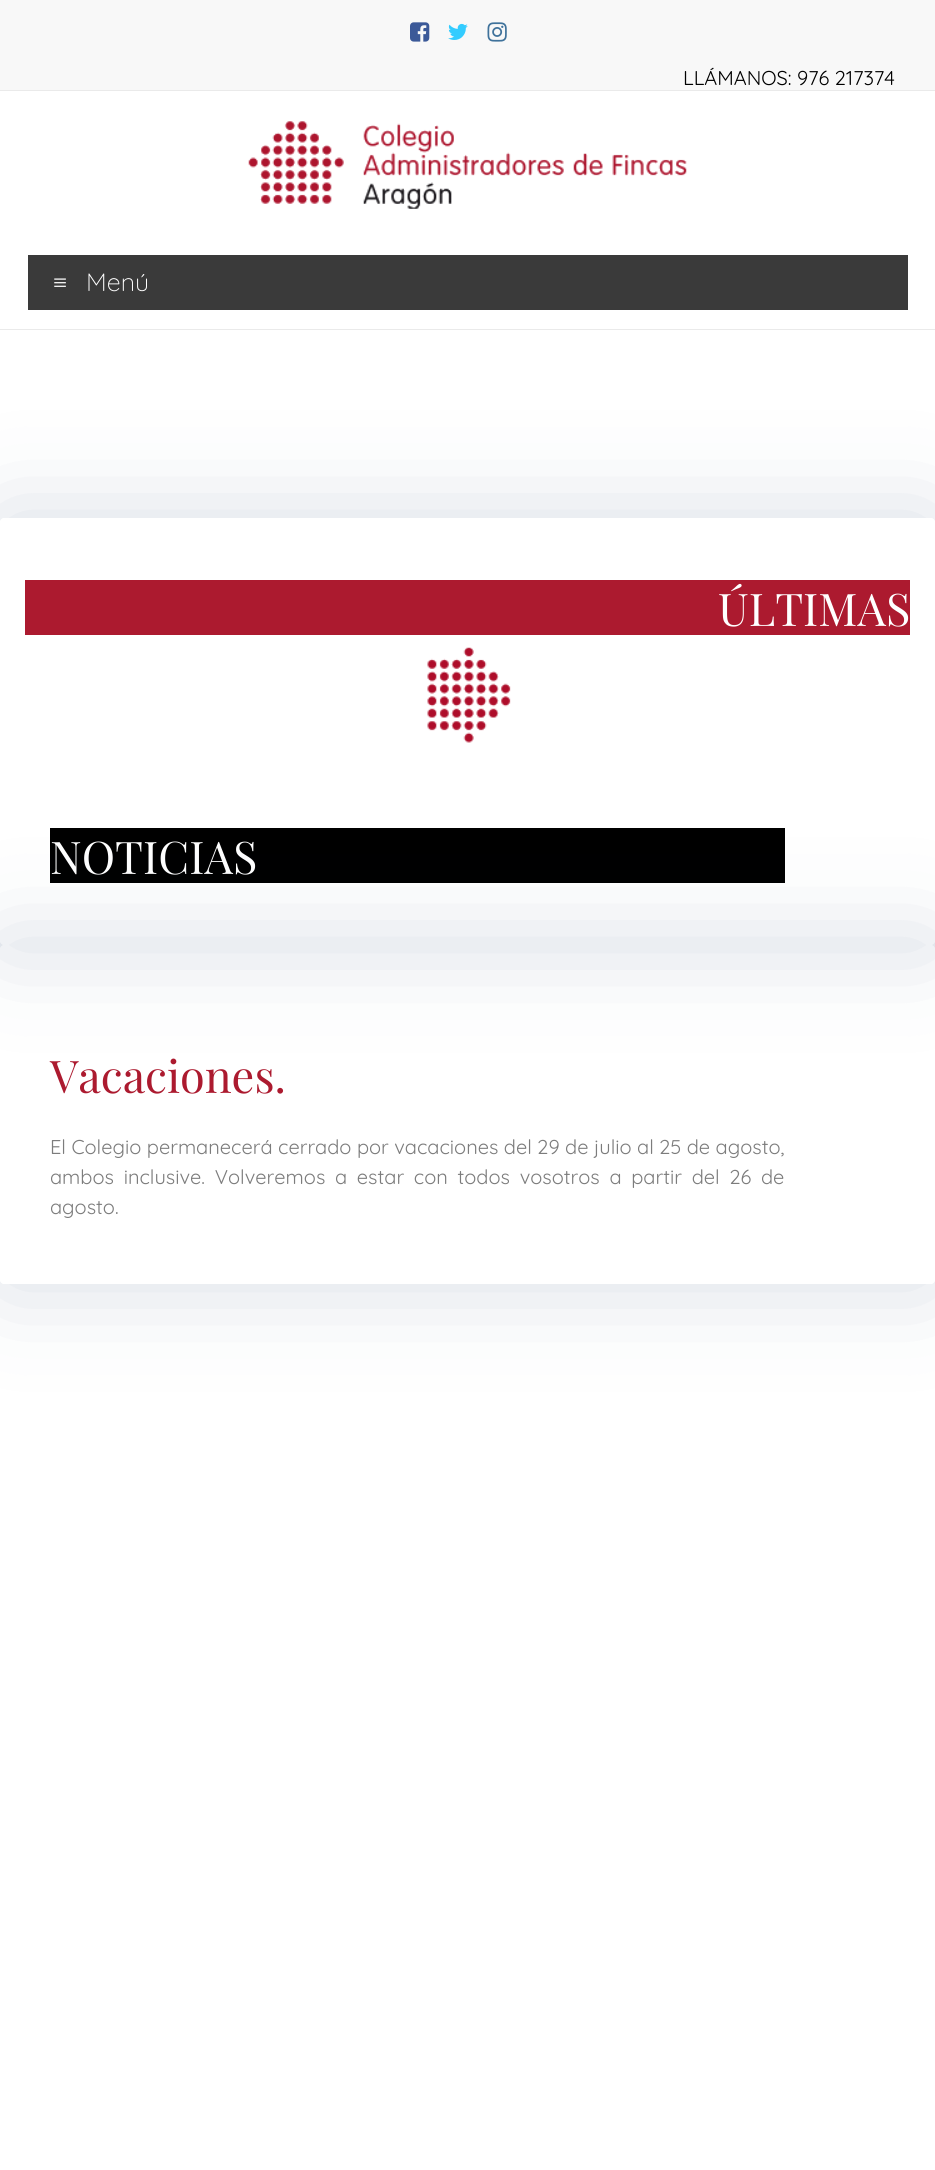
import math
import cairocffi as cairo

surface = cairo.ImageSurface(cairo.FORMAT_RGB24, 935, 2170)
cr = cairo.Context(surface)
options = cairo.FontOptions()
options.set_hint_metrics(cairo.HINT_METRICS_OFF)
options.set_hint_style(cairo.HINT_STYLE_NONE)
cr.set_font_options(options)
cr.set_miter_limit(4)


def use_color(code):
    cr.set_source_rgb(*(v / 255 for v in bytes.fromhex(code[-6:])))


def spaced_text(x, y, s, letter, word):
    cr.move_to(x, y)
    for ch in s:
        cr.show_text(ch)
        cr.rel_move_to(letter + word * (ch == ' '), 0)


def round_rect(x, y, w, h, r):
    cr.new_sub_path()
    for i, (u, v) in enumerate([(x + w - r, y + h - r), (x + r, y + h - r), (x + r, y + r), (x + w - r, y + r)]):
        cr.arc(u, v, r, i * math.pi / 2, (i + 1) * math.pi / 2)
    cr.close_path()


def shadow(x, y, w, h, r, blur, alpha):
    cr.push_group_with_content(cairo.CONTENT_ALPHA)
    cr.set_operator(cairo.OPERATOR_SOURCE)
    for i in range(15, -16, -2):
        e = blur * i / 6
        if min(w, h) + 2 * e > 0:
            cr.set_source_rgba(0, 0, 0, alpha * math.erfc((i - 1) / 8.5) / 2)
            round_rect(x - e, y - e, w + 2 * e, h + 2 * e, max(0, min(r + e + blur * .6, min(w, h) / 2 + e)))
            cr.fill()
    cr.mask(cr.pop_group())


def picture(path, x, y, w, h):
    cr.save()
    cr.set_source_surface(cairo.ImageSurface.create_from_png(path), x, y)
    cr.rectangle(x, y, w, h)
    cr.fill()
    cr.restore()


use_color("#ffffff")
cr.paint()
use_color("#f8f8f8")
cr.rectangle(0, 0, 935, 90)
cr.fill()
use_color("#eaeaea")
cr.rectangle(0, 90, 935, 1)
cr.fill()
picture("img1.png", 410, 22, 20, 20)
picture("img2.png", 448, 23, 20, 17)
picture("img3.png", 487, 22, 20, 20)
cr.select_font_face("Quicksand Light")
cr.set_font_size(20)
use_color("#000000")
cr.move_to(683, 85)
cr.show_text("LLÁMANOS: 976 217374")
use_color("#eaeaea")
cr.rectangle(0, 329, 935, 1)
cr.fill()
picture("img4.png", 248, 121, 439, 88)
use_color("#3a3a3a")
cr.rectangle(28, 255, 880, 55)
cr.fill()
cr.select_font_face("Liberation Serif")
cr.set_font_size(25)
use_color("#ffffff")
cr.move_to(53, 291)
cr.show_text("≡")
cr.select_font_face("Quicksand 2 Light")
cr.move_to(86, 291)
cr.show_text("Menú")
cr.save()
cr.set_fill_rule(cairo.FILL_RULE_EVEN_ODD)
cr.new_path()
cr.move_to(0, 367)
cr.line_to(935, 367)
cr.line_to(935, 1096)
cr.line_to(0, 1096)
cr.close_path()
cr.move_to(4, 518)
cr.line_to(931, 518)
cr.curve_to(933, 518, 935, 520, 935, 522)
cr.line_to(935, 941)
cr.curve_to(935, 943, 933, 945, 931, 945)
cr.line_to(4, 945)
cr.curve_to(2, 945, 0, 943, 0, 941)
cr.line_to(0, 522)
cr.curve_to(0, 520, 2, 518, 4, 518)
cr.close_path()
cr.clip()
use_color("#102d5e")
shadow(0, 518, 935, 427, 4, 50, 0.17)
cr.restore()
use_color("#ac1a2f")
cr.rectangle(25, 580, 885, 55)
cr.fill()
cr.select_font_face("Playfair Display")
cr.set_font_size(45)
use_color("#ffffff")
cr.move_to(718, 626)
cr.show_text("ÚLTIMAS")
picture("img5.png", 427, 647, 84, 96)
use_color("#000000")
cr.rectangle(50, 828, 735, 55)
cr.fill()
use_color("#ffffff")
cr.move_to(50, 874)
cr.show_text("NOTICIAS")
cr.save()
cr.set_fill_rule(cairo.FILL_RULE_EVEN_ODD)
cr.new_path()
cr.move_to(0, 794)
cr.line_to(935, 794)
cr.line_to(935, 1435)
cr.line_to(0, 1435)
cr.close_path()
cr.move_to(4, 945)
cr.line_to(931, 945)
cr.curve_to(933, 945, 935, 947, 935, 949)
cr.line_to(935, 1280)
cr.curve_to(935, 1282, 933, 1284, 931, 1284)
cr.line_to(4, 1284)
cr.curve_to(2, 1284, 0, 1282, 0, 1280)
cr.line_to(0, 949)
cr.curve_to(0, 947, 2, 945, 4, 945)
cr.close_path()
cr.clip()
use_color("#102d5e")
shadow(0, 945, 935, 339, 4, 50, 0.17)
cr.restore()
use_color("#ac1a2f")
cr.move_to(50, 1093)
cr.show_text("Vacaciones.")
cr.select_font_face("Quicksand Light")
cr.set_font_size(20)
use_color("#7c7c7c")
cr.move_to(50, 1154)
cr.show_text("El Colegio permanecerá cerrado por vacaciones del 29 de julio al 25 de agosto,")
spaced_text(50, 1184, "ambos inclusive. Volveremos a estar con todos vosotros a partir del 26 de", 0, 4.25)
cr.move_to(50, 1214)
cr.show_text("agosto.")
surface.write_to_png("result.png")
